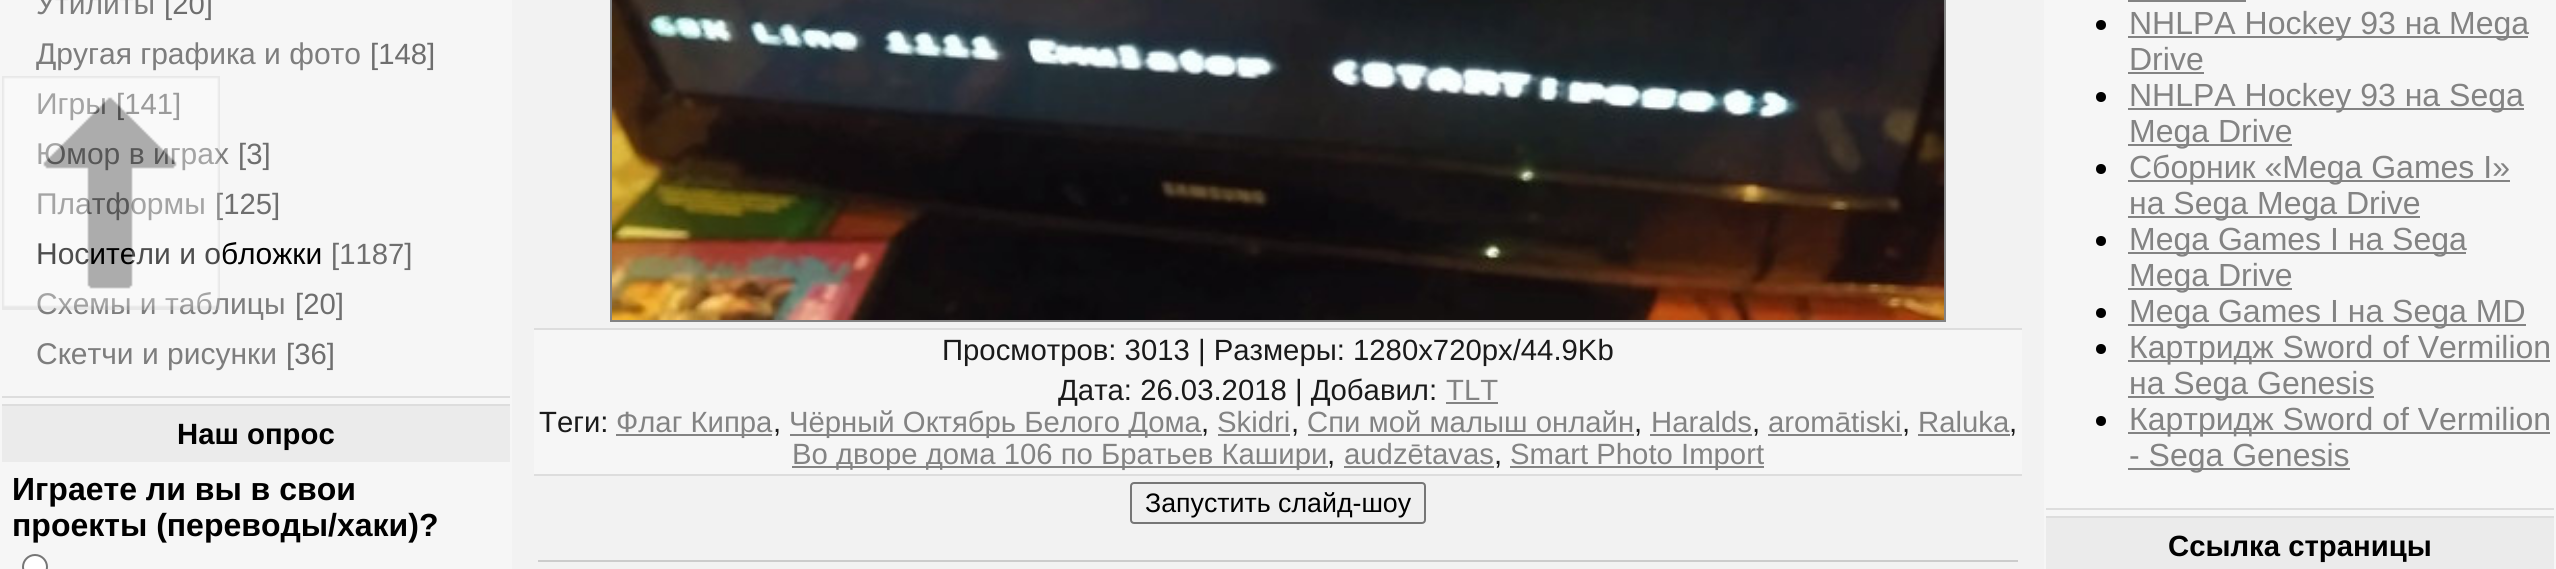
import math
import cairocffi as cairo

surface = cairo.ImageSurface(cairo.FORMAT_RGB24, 2556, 569)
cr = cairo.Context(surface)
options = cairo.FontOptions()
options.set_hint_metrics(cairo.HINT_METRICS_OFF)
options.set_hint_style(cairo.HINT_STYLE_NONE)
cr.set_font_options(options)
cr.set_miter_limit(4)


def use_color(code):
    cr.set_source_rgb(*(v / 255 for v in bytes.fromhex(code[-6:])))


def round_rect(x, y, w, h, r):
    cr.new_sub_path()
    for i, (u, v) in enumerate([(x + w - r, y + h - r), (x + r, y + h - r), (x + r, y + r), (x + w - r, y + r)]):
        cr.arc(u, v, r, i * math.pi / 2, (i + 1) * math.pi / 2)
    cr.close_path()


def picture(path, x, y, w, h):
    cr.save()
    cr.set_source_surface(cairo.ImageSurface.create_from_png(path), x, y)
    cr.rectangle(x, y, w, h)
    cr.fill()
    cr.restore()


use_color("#f2f2f2")
cr.paint()
use_color("#f6f6f6")
cr.rectangle(0, 0, 512, 569)
cr.fill()
use_color("#dddddd")
cr.rectangle(2, 396, 508, 2)
cr.fill()
cr.select_font_face("Liberation Sans")
cr.set_font_size(30)
use_color("#7d7d7d")
cr.move_to(36, 14)
cr.show_text("Утилиты")
cr.set_font_size(29.3)
use_color("#6e6e6e")
cr.move_to(164, 14)
cr.show_text("[20]")
cr.set_font_size(30)
use_color("#7d7d7d")
cr.move_to(36, 64)
cr.show_text("Другая графика и фото")
cr.set_font_size(29.3)
use_color("#6e6e6e")
cr.move_to(370, 64)
cr.show_text("[148]")
cr.set_font_size(30)
use_color("#7d7d7d")
cr.move_to(36, 114)
cr.show_text("Игры")
cr.set_font_size(29.3)
use_color("#6e6e6e")
cr.move_to(116, 114)
cr.show_text("[141]")
cr.set_font_size(30)
use_color("#7d7d7d")
cr.move_to(36, 164)
cr.show_text("Юмор в играх")
cr.set_font_size(29.3)
use_color("#6e6e6e")
cr.move_to(238, 164)
cr.show_text("[3]")
cr.set_font_size(30)
use_color("#7d7d7d")
cr.move_to(36, 214)
cr.show_text("Платформы")
cr.set_font_size(29.3)
use_color("#6e6e6e")
cr.move_to(215, 214)
cr.show_text("[125]")
cr.set_font_size(30)
use_color("#000000")
cr.move_to(36, 264)
cr.show_text("Носители и обложки")
cr.set_font_size(29.3)
use_color("#6e6e6e")
cr.move_to(331, 264)
cr.show_text("[1187]")
cr.set_font_size(30)
use_color("#7d7d7d")
cr.move_to(36, 314)
cr.show_text("Схемы и таблицы")
cr.set_font_size(29.3)
use_color("#6e6e6e")
cr.move_to(295, 314)
cr.show_text("[20]")
cr.set_font_size(30)
use_color("#7d7d7d")
cr.move_to(36, 364)
cr.show_text("Скетчи и рисунки")
cr.set_font_size(29.3)
use_color("#6e6e6e")
cr.move_to(286, 364)
cr.show_text("[36]")
use_color("#dddddd")
cr.rectangle(2, 404, 508, 2)
cr.fill()
use_color("#ebebeb")
cr.rectangle(2, 406, 508, 56)
cr.fill()
cr.select_font_face("Liberation Sans", cairo.FONT_SLANT_NORMAL, cairo.FONT_WEIGHT_BOLD)
use_color("#000000")
cr.move_to(177, 444)
cr.show_text("Наш опрос")
cr.set_font_size(32)
cr.move_to(12, 500)
cr.show_text("Играете ли вы в свои")
cr.move_to(12, 536)
cr.show_text("проекты (переводы/хаки)?")
use_color("#ffffff")
cr.new_path()
cr.arc(35, 567, 12, 0, 2 * math.pi)
cr.fill_preserve()
use_color("#767676")
cr.stroke()
cr.rectangle(611, -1, 1334, 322)
use_color("#838383")
cr.stroke()
picture("img1.png", 612, 0, 1332, 320)
use_color("#f6f6f6")
cr.rectangle(534, 330, 1488, 144)
cr.fill()
use_color("#dddddd")
cr.rectangle(534, 328, 1488, 2)
cr.fill()
cr.rectangle(534, 474, 1488, 2)
cr.fill()
cr.select_font_face("Liberation Sans")
cr.set_font_size(29.3)
use_color("#1a1a1a")
cr.move_to(942, 360)
cr.show_text("Просмотров: 3013 | Размеры: 1280x720px/44.9Kb")
cr.move_to(1058, 400)
cr.show_text("Дата: 26.03.2018 | Добавил:")
use_color("#838383")
cr.move_to(1446, 400)
cr.show_text("TLT")
cr.rectangle(1446, 402, 52, 2)
cr.fill()
use_color("#1a1a1a")
cr.move_to(539, 432)
cr.show_text("Теги:")
use_color("#838383")
cr.rectangle(616, 434, 156, 2)
cr.fill()
cr.move_to(616, 432)
cr.show_text("Флаг Кипра")
use_color("#1a1a1a")
cr.move_to(773, 432)
cr.show_text(",")
use_color("#838383")
cr.rectangle(790, 434, 412, 2)
cr.fill()
cr.move_to(789, 432)
cr.show_text("Чёрный Октябрь Белого Дома")
use_color("#1a1a1a")
cr.move_to(1201, 432)
cr.show_text(",")
use_color("#838383")
cr.move_to(1217, 432)
cr.show_text("Skidri")
use_color("#1a1a1a")
cr.move_to(1291, 432)
cr.show_text(",")
use_color("#838383")
cr.rectangle(1218, 434, 72, 2)
cr.fill()
cr.move_to(1307, 432)
cr.show_text("Спи мой малыш онлайн")
use_color("#1a1a1a")
cr.move_to(1634, 432)
cr.show_text(",")
use_color("#838383")
cr.rectangle(1308, 434, 326, 2)
cr.fill()
cr.move_to(1651, 432)
cr.show_text("Haralds")
use_color("#1a1a1a")
cr.move_to(1752, 432)
cr.show_text(",")
use_color("#838383")
cr.rectangle(1650, 434, 102, 2)
cr.fill()
cr.move_to(1768, 432)
cr.show_text("aromātiski")
use_color("#1a1a1a")
cr.move_to(1902, 432)
cr.show_text(",")
use_color("#838383")
cr.rectangle(1768, 434, 134, 2)
cr.fill()
cr.move_to(1918, 432)
cr.show_text("Raluka")
use_color("#1a1a1a")
cr.move_to(2009, 432)
cr.show_text(",")
use_color("#838383")
cr.rectangle(1918, 434, 92, 2)
cr.fill()
cr.rectangle(792, 466, 536, 2)
cr.fill()
cr.move_to(792, 464)
cr.show_text("Во дворе дома 106 по Братьев Кашири")
use_color("#1a1a1a")
cr.move_to(1327, 464)
cr.show_text(",")
use_color("#838383")
cr.move_to(1344, 464)
cr.show_text("audzētavas")
use_color("#1a1a1a")
cr.move_to(1494, 464)
cr.show_text(",")
use_color("#838383")
cr.rectangle(1344, 466, 150, 2)
cr.fill()
cr.rectangle(1510, 466, 254, 2)
cr.fill()
cr.move_to(1510, 464)
cr.show_text("Smart Photo Import")
use_color("#efefef")
round_rect(1131, 483, 294, 40, 3)
cr.fill_preserve()
use_color("#767676")
cr.stroke()
cr.set_font_size(26.75)
use_color("#000000")
cr.move_to(1145, 512)
cr.show_text("Запустить слайд-шоу")
use_color("#cccccc")
cr.rectangle(538, 560, 1480, 2)
cr.fill()
use_color("#f6f6f6")
cr.rectangle(2044, 0, 512, 569)
cr.fill()
use_color("#dddddd")
cr.rectangle(2046, 508, 508, 2)
cr.fill()
use_color("#838383")
cr.rectangle(2128, 0, 118, 2)
cr.fill()
use_color("#000000")
cr.arc(2101, 25, 5, 0, 2 * math.pi)
cr.fill()
use_color("#838383")
cr.rectangle(2128, 36, 400, 2)
cr.fill()
cr.set_font_size(32)
cr.move_to(2129, 34)
cr.show_text("NHLPA Hockey 93 на Mega")
cr.move_to(2129, 70)
cr.show_text("Drive")
cr.rectangle(2128, 72, 76, 2)
cr.fill()
use_color("#000000")
cr.arc(2101, 97, 5, 0, 2 * math.pi)
cr.fill()
use_color("#838383")
cr.rectangle(2128, 108, 396, 2)
cr.fill()
cr.move_to(2129, 106)
cr.show_text("NHLPA Hockey 93 на Sega")
cr.rectangle(2128, 144, 164, 2)
cr.fill()
cr.move_to(2129, 142)
cr.show_text("Mega Drive")
use_color("#000000")
cr.new_path()
cr.arc(2101, 169, 5, 0, 2 * math.pi)
cr.fill()
use_color("#838383")
cr.rectangle(2128, 180, 382, 2)
cr.fill()
cr.move_to(2129, 178)
cr.show_text("Сборник «Mega Games I»")
cr.rectangle(2128, 216, 292, 2)
cr.fill()
cr.move_to(2129, 214)
cr.show_text("на Sega Mega Drive")
use_color("#000000")
cr.new_path()
cr.arc(2101, 241, 5, 0, 2 * math.pi)
cr.fill()
use_color("#838383")
cr.rectangle(2128, 252, 338, 2)
cr.fill()
cr.move_to(2129, 250)
cr.show_text("Mega Games I на Sega")
cr.rectangle(2128, 288, 164, 2)
cr.fill()
cr.move_to(2129, 286)
cr.show_text("Mega Drive")
use_color("#000000")
cr.new_path()
cr.arc(2101, 313, 5, 0, 2 * math.pi)
cr.fill()
use_color("#838383")
cr.rectangle(2128, 324, 398, 2)
cr.fill()
cr.move_to(2129, 322)
cr.show_text("Mega Games I на Sega MD")
use_color("#000000")
cr.new_path()
cr.arc(2101, 349, 5, 0, 2 * math.pi)
cr.fill()
use_color("#838383")
cr.rectangle(2128, 360, 422, 2)
cr.fill()
cr.move_to(2129, 358)
cr.show_text("Картридж Sword of Vermilion")
cr.rectangle(2128, 396, 246, 2)
cr.fill()
cr.move_to(2129, 394)
cr.show_text("на Sega Genesis")
use_color("#000000")
cr.new_path()
cr.arc(2101, 421, 5, 0, 2 * math.pi)
cr.fill()
use_color("#838383")
cr.rectangle(2128, 432, 422, 2)
cr.fill()
cr.move_to(2129, 430)
cr.show_text("Картридж Sword of Vermilion")
cr.rectangle(2128, 468, 222, 2)
cr.fill()
cr.move_to(2129, 466)
cr.show_text("- Sega Genesis")
use_color("#dddddd")
cr.rectangle(2046, 516, 508, 2)
cr.fill()
use_color("#ebebeb")
cr.rectangle(2046, 518, 508, 51)
cr.fill()
cr.select_font_face("Liberation Sans", cairo.FONT_SLANT_NORMAL, cairo.FONT_WEIGHT_BOLD)
cr.set_font_size(29.3)
use_color("#000000")
cr.move_to(2168, 556)
cr.show_text("Ссылка страницы")
picture("img2.png", 2, 76, 218, 234)
surface.write_to_png("result.png")
